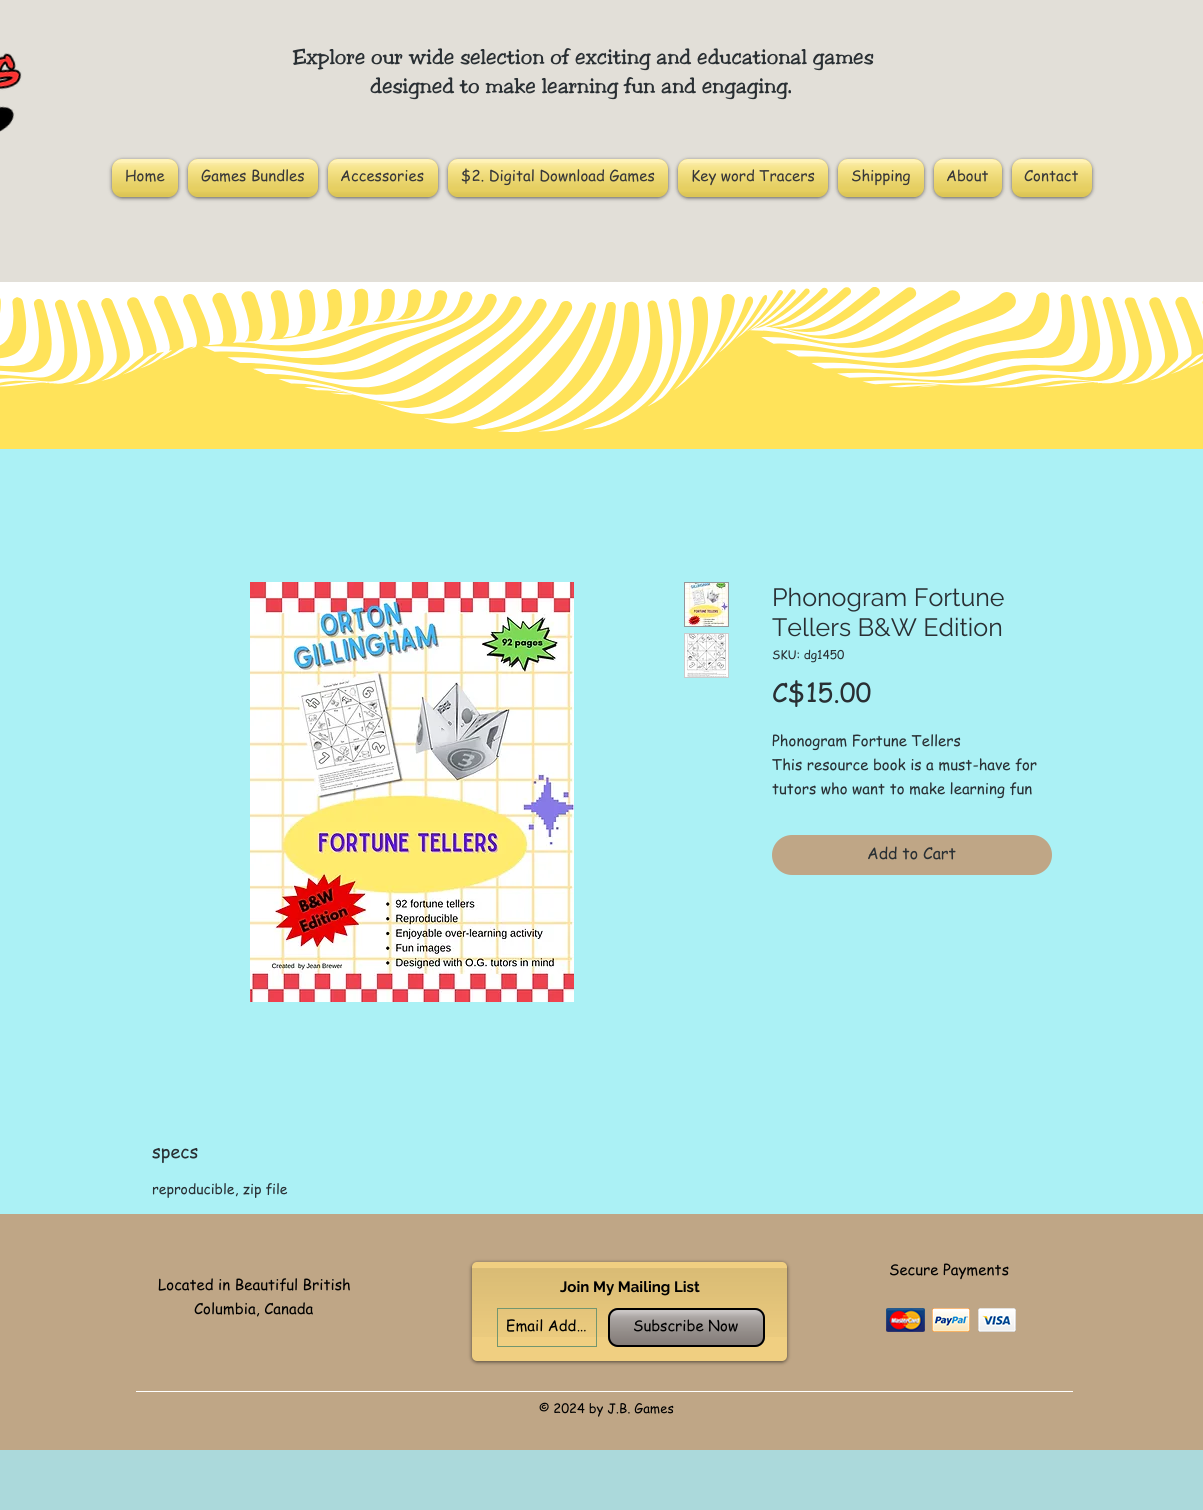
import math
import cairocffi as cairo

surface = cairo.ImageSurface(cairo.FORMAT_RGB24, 1203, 1510)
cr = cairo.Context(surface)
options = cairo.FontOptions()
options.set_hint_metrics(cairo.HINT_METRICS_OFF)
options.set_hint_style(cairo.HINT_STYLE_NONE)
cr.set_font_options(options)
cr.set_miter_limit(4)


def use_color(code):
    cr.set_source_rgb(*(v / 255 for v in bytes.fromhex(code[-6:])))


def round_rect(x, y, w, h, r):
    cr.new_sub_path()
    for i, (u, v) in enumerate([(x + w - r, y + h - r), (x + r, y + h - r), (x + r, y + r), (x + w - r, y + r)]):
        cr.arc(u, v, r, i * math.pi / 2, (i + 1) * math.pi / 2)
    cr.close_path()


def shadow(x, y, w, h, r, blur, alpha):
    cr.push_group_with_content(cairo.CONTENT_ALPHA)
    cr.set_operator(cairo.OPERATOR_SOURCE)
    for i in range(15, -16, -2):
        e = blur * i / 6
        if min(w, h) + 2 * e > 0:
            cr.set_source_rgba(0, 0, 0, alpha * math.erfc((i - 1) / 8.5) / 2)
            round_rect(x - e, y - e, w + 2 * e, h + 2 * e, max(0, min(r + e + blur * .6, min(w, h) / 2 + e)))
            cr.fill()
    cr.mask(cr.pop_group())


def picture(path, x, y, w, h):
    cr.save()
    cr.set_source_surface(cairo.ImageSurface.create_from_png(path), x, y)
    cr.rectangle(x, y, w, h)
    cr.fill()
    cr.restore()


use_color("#abd9db")
cr.paint()
use_color("#e2dfd8")
cr.rectangle(0, 0, 1203, 282)
cr.fill()
picture("img1.png", 0, 53, 22, 79)
cr.select_font_face("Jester")
cr.set_font_size(22)
use_color("#292f33")
cr.move_to(293, 64)
cr.show_text("Explore our wide selection of exciting and educational games")
cr.move_to(370, 93)
cr.show_text("designed to make learning fun and engaging.")
use_color("#000000")
shadow(112, 160, 66, 38, 10, 2, 0.6)
use_color("#ffe35a")
round_rect(112, 159, 66, 38, 10)
cr.fill()
picture("img2.png", 112, 159, 66, 38)
picture("img3.png", 112, 163, 66, 34)
cr.select_font_face("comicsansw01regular")
cr.set_font_size(15)
use_color("#383838")
cr.move_to(125, 181)
cr.show_text("Home")
use_color("#000000")
shadow(188, 160, 130, 38, 10, 2, 0.6)
use_color("#ffe35a")
round_rect(188, 159, 130, 38, 10)
cr.fill()
picture("img4.png", 188, 159, 130, 38)
picture("img5.png", 188, 163, 130, 34)
use_color("#383838")
cr.move_to(201, 181)
cr.show_text("Games Bundles")
use_color("#000000")
shadow(328, 160, 110, 38, 10, 2, 0.6)
use_color("#ffe35a")
round_rect(328, 159, 110, 38, 10)
cr.fill()
picture("img6.png", 328, 159, 110, 38)
picture("img7.png", 328, 163, 110, 34)
use_color("#383838")
cr.move_to(340, 181)
cr.show_text("Accessories")
use_color("#000000")
shadow(448, 160, 220, 38, 10, 2, 0.6)
use_color("#ffe35a")
round_rect(448, 159, 220, 38, 10)
cr.fill()
picture("img8.png", 448, 159, 220, 38)
picture("img9.png", 448, 163, 220, 34)
use_color("#383838")
cr.move_to(461, 181)
cr.show_text("$2. Digital Download Games")
use_color("#000000")
shadow(678, 160, 150, 38, 10, 2, 0.6)
use_color("#ffe35a")
round_rect(678, 159, 150, 38, 10)
cr.fill()
picture("img10.png", 678, 159, 150, 38)
picture("img11.png", 678, 163, 150, 34)
use_color("#383838")
cr.move_to(691, 181)
cr.show_text("Key word Tracers")
use_color("#000000")
shadow(838, 160, 86, 38, 10, 2, 0.6)
use_color("#ffe35a")
round_rect(838, 159, 86, 38, 10)
cr.fill()
picture("img12.png", 838, 159, 86, 38)
picture("img13.png", 838, 163, 86, 34)
use_color("#383838")
cr.move_to(851, 181)
cr.show_text("Shipping")
use_color("#000000")
shadow(934, 160, 68, 38, 10, 2, 0.6)
use_color("#ffe35a")
round_rect(934, 159, 68, 38, 10)
cr.fill()
picture("img14.png", 934, 159, 68, 38)
picture("img15.png", 934, 163, 68, 34)
use_color("#383838")
cr.move_to(946, 181)
cr.show_text("About")
use_color("#000000")
shadow(1012, 160, 80, 38, 10, 2, 0.6)
use_color("#ffe35a")
round_rect(1012, 159, 80, 38, 10)
cr.fill()
picture("img16.png", 1012, 159, 80, 38)
picture("img17.png", 1012, 163, 80, 34)
use_color("#383838")
cr.move_to(1024, 181)
cr.show_text("Contact")
use_color("#abf1f5")
cr.rectangle(0, 449, 1203, 765)
cr.fill()
use_color("#ffe35a")
cr.rectangle(0, 287, 1203, 162)
cr.fill()
picture("img18.png", 0, 282, 1203, 150)
picture("img19.png", 250, 582, 324, 420)
cr.rectangle(684.5, 582.5, 44, 44)
use_color("#949799")
cr.set_line_width(1)
cr.stroke()
picture("img20.png", 685, 583, 43, 43)
cr.rectangle(684.5, 633.5, 44, 44)
use_color("#cacbcc")
cr.stroke()
picture("img21.png", 685, 634, 43, 43)
cr.select_font_face("Raleway")
cr.set_font_size(25)
use_color("#292f33")
cr.move_to(772, 606)
cr.show_text("Phonogram Fortune")
cr.move_to(772, 636)
cr.show_text("Tellers B&W Edition")
cr.select_font_face("comicsansw01regular")
cr.set_font_size(12)
cr.move_to(772, 659)
cr.show_text("SKU: dg1450")
cr.set_font_size(26)
cr.move_to(772, 702)
cr.show_text("C$15.00")
cr.set_font_size(15)
cr.move_to(772, 746)
cr.show_text("Phonogram Fortune Tellers")
cr.move_to(772, 770)
cr.show_text("This resource book is a must-have for")
cr.move_to(772, 794)
cr.show_text("tutors who want to make learning fun")
use_color("#bfa686")
round_rect(772, 835, 280, 40, 20)
cr.fill()
cr.set_font_size(16)
use_color("#292f33")
cr.move_to(867, 859)
cr.show_text("Add to Cart")
cr.set_font_size(18)
cr.move_to(152, 1158)
cr.show_text("specs")
cr.set_font_size(14)
cr.move_to(152, 1194)
cr.show_text("reproducible, zip file")
use_color("#bfa686")
cr.rectangle(0, 1214, 1203, 236)
cr.fill()
cr.set_font_size(15)
use_color("#000000")
cr.move_to(889, 1275)
cr.show_text("Secure Payments")
cr.move_to(158, 1290)
cr.show_text("Located in Beautiful British")
cr.move_to(194, 1314)
cr.show_text("Columbia, Canada")
use_color("#000000")
shadow(472, 1263, 315, 99, 5, 2, 0.6)
use_color("#f0cf81")
round_rect(472, 1262, 315, 99, 5)
cr.fill()
picture("img22.png", 472, 1268, 315, 69)
cr.select_font_face("Raleway", cairo.FONT_SLANT_NORMAL, cairo.FONT_WEIGHT_BOLD)
use_color("#000000")
cr.move_to(560, 1292)
cr.show_text("Join My Mailing List")
cr.rectangle(497.5, 1308.5, 99, 38)
use_color("#73966f")
cr.stroke()
cr.select_font_face("comicsansw01regular")
use_color("#000000")
cr.move_to(506, 1331)
cr.show_text("Email Add…")
use_color("#7b736f")
round_rect(608, 1308, 157, 39, 10)
cr.fill()
picture("img23.png", 608, 1310, 157, 37)
round_rect(609, 1309, 155, 37, 9)
use_color("#000000")
cr.set_line_width(2)
cr.stroke()
cr.move_to(633, 1331)
cr.show_text("Subscribe Now")
picture("img24.png", 886, 1308, 130, 24)
use_color("#ffffff")
cr.rectangle(136, 1391, 937, 1)
cr.fill()
cr.set_font_size(13)
use_color("#000000")
cr.move_to(539, 1413)
cr.show_text("© 2024 by J.B. Games")
surface.write_to_png("result.png")
